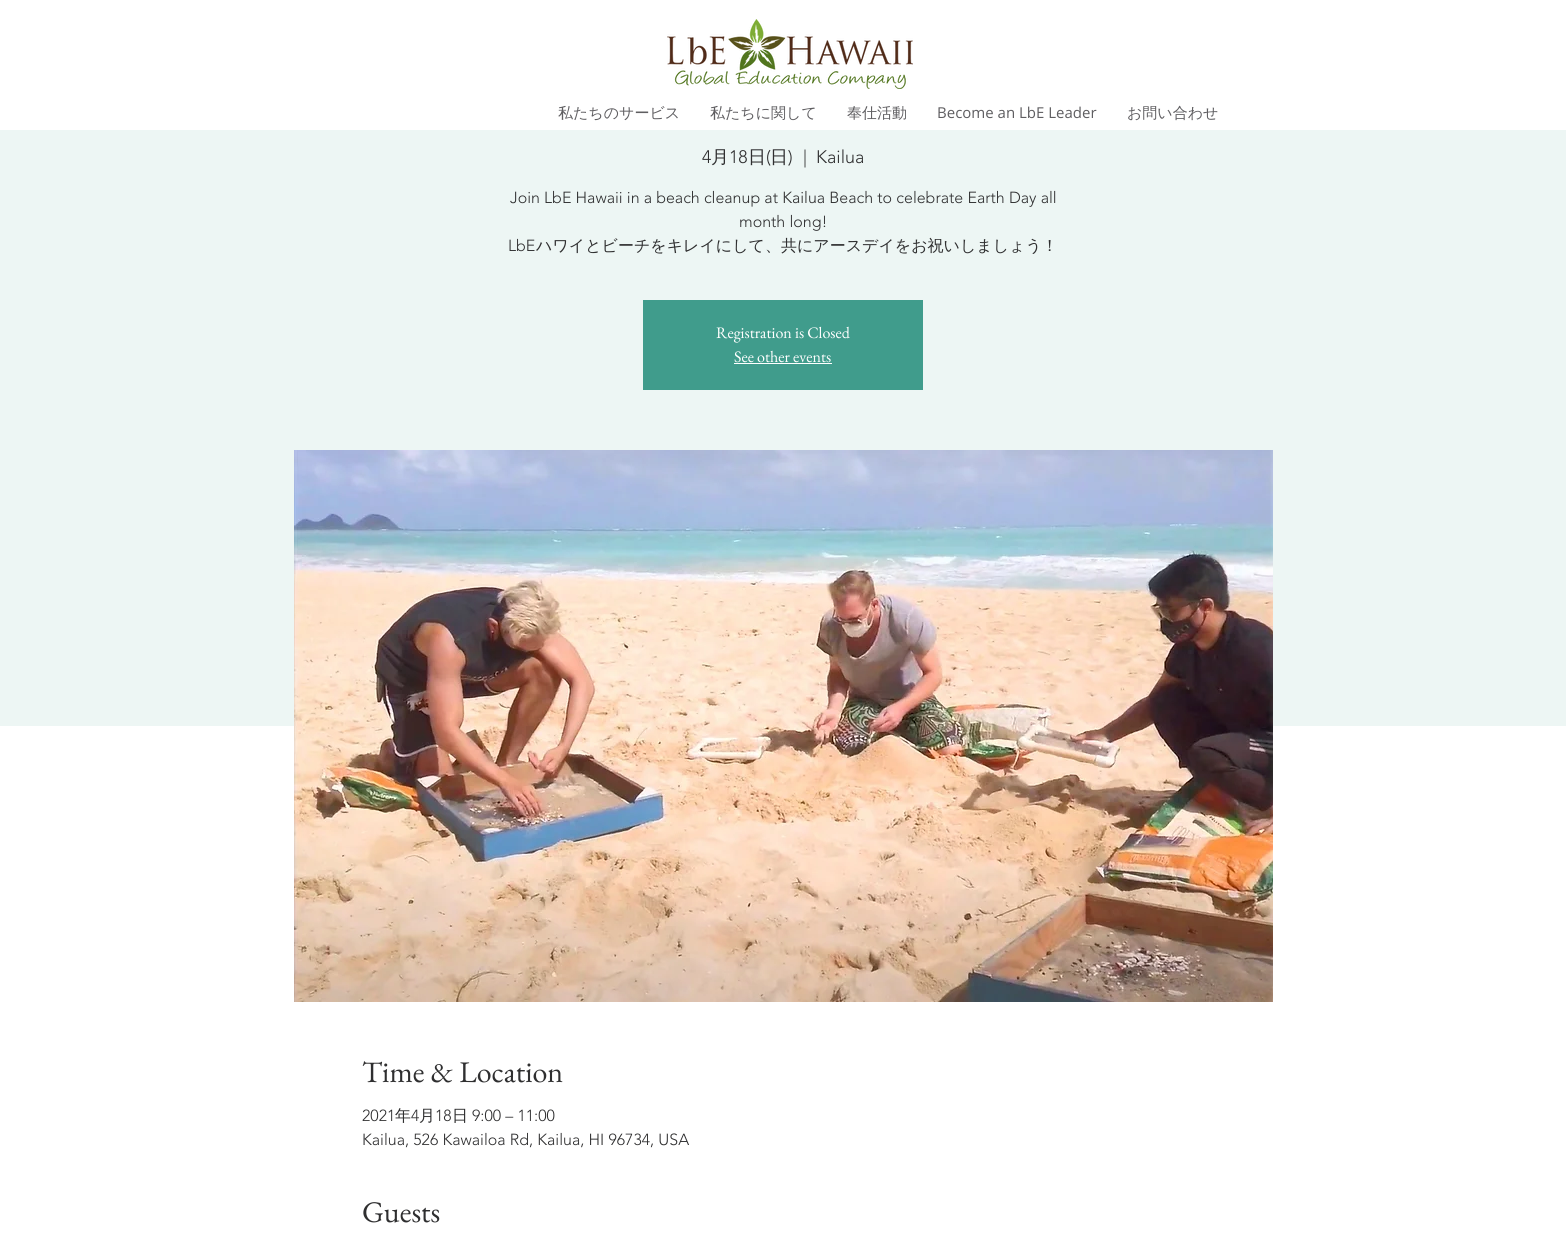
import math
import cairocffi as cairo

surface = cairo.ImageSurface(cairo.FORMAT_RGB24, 1566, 1259)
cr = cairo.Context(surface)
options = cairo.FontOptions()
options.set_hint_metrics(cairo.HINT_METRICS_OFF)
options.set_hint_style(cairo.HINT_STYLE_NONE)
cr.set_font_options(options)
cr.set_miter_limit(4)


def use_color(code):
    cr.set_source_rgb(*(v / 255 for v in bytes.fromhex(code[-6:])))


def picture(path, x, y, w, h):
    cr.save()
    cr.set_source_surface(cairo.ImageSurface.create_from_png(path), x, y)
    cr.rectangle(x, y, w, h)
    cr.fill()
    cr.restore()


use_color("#ffffff")
cr.paint()
picture("img1.png", 667, 19, 246, 70)
cr.select_font_face("WenQuanYi Zen Hei Medium")
cr.set_font_size(15)
use_color("#5f5e61")
cr.move_to(558, 118)
cr.show_text("私たちのサービス")
cr.move_to(710, 118)
cr.show_text("私たちに関して")
cr.move_to(847, 118)
cr.show_text("奉仕活動")
cr.select_font_face("Open Sans")
cr.move_to(937, 118)
cr.show_text("Become an LbE Leader")
cr.select_font_face("WenQuanYi Zen Hei Medium")
cr.move_to(1127, 118)
cr.show_text("お問い合わせ")
use_color("#edf6f4")
cr.rectangle(0, 130, 1566, 596)
cr.fill()
cr.select_font_face("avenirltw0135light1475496 Light")
cr.set_font_size(18)
use_color("#2f2f30")
cr.move_to(702, 163)
cr.show_text("4")
cr.select_font_face("WenQuanYi Zen Hei Medium")
cr.move_to(711, 163)
cr.show_text("月")
cr.select_font_face("avenirltw0135light1475496 Light")
cr.move_to(729, 163)
cr.show_text("18")
cr.select_font_face("WenQuanYi Zen Hei Medium")
cr.move_to(748, 163)
cr.show_text("日")
cr.select_font_face("avenirltw0135light1475496 Light")
cr.move_to(766, 163)
cr.show_text("(")
cr.select_font_face("WenQuanYi Zen Hei Medium")
cr.move_to(770, 163)
cr.show_text("日")
cr.select_font_face("avenirltw0135light1475496 Light")
cr.move_to(788, 163)
cr.show_text(")")
cr.move_to(803, 163)
cr.show_text("|")
cr.move_to(816, 163)
cr.show_text("Kailua")
cr.set_font_size(16)
cr.move_to(510, 203)
cr.show_text("Join LbE Hawaii in a beach cleanup at Kailua Beach to celebrate Earth Day all")
cr.move_to(739, 227)
cr.show_text("month long!")
cr.move_to(508, 251)
cr.show_text("LbE")
cr.select_font_face("WenQuanYi Zen Hei Medium")
cr.move_to(536, 251)
cr.show_text("ハワイとビーチをキレイにして、共にアースデイをお祝いしましょう！")
use_color("#409c8c")
cr.rectangle(643, 300, 280, 90)
cr.fill()
cr.select_font_face("EB Garamond")
use_color("#ffffff")
cr.move_to(716, 338)
cr.show_text("Registration is Closed")
cr.move_to(734, 362)
cr.show_text("See other events")
cr.rectangle(734, 363, 98, 1)
cr.fill()
picture("img2.png", 294, 450, 979, 552)
cr.set_font_size(30)
use_color("#2f2f30")
cr.move_to(362, 1082)
cr.show_text("Time & Location")
cr.select_font_face("avenirltw0135light1475496 Light")
cr.set_font_size(16)
cr.move_to(362, 1121)
cr.show_text("2021")
cr.select_font_face("WenQuanYi Zen Hei Medium")
cr.move_to(395, 1121)
cr.show_text("年")
cr.select_font_face("avenirltw0135light1475496 Light")
cr.move_to(411, 1121)
cr.show_text("4")
cr.select_font_face("WenQuanYi Zen Hei Medium")
cr.move_to(419, 1121)
cr.show_text("月")
cr.select_font_face("avenirltw0135light1475496 Light")
cr.move_to(435, 1121)
cr.show_text("18")
cr.select_font_face("WenQuanYi Zen Hei Medium")
cr.move_to(452, 1121)
cr.show_text("日")
cr.select_font_face("avenirltw0135light1475496 Light")
cr.move_to(472, 1121)
cr.show_text("9:00 – 11:00")
cr.move_to(362, 1145)
cr.show_text("Kailua, 526 Kawailoa Rd, Kailua, HI 96734, USA")
cr.select_font_face("EB Garamond")
cr.set_font_size(30)
cr.move_to(362, 1222)
cr.show_text("Guests")
surface.write_to_png("result.png")
